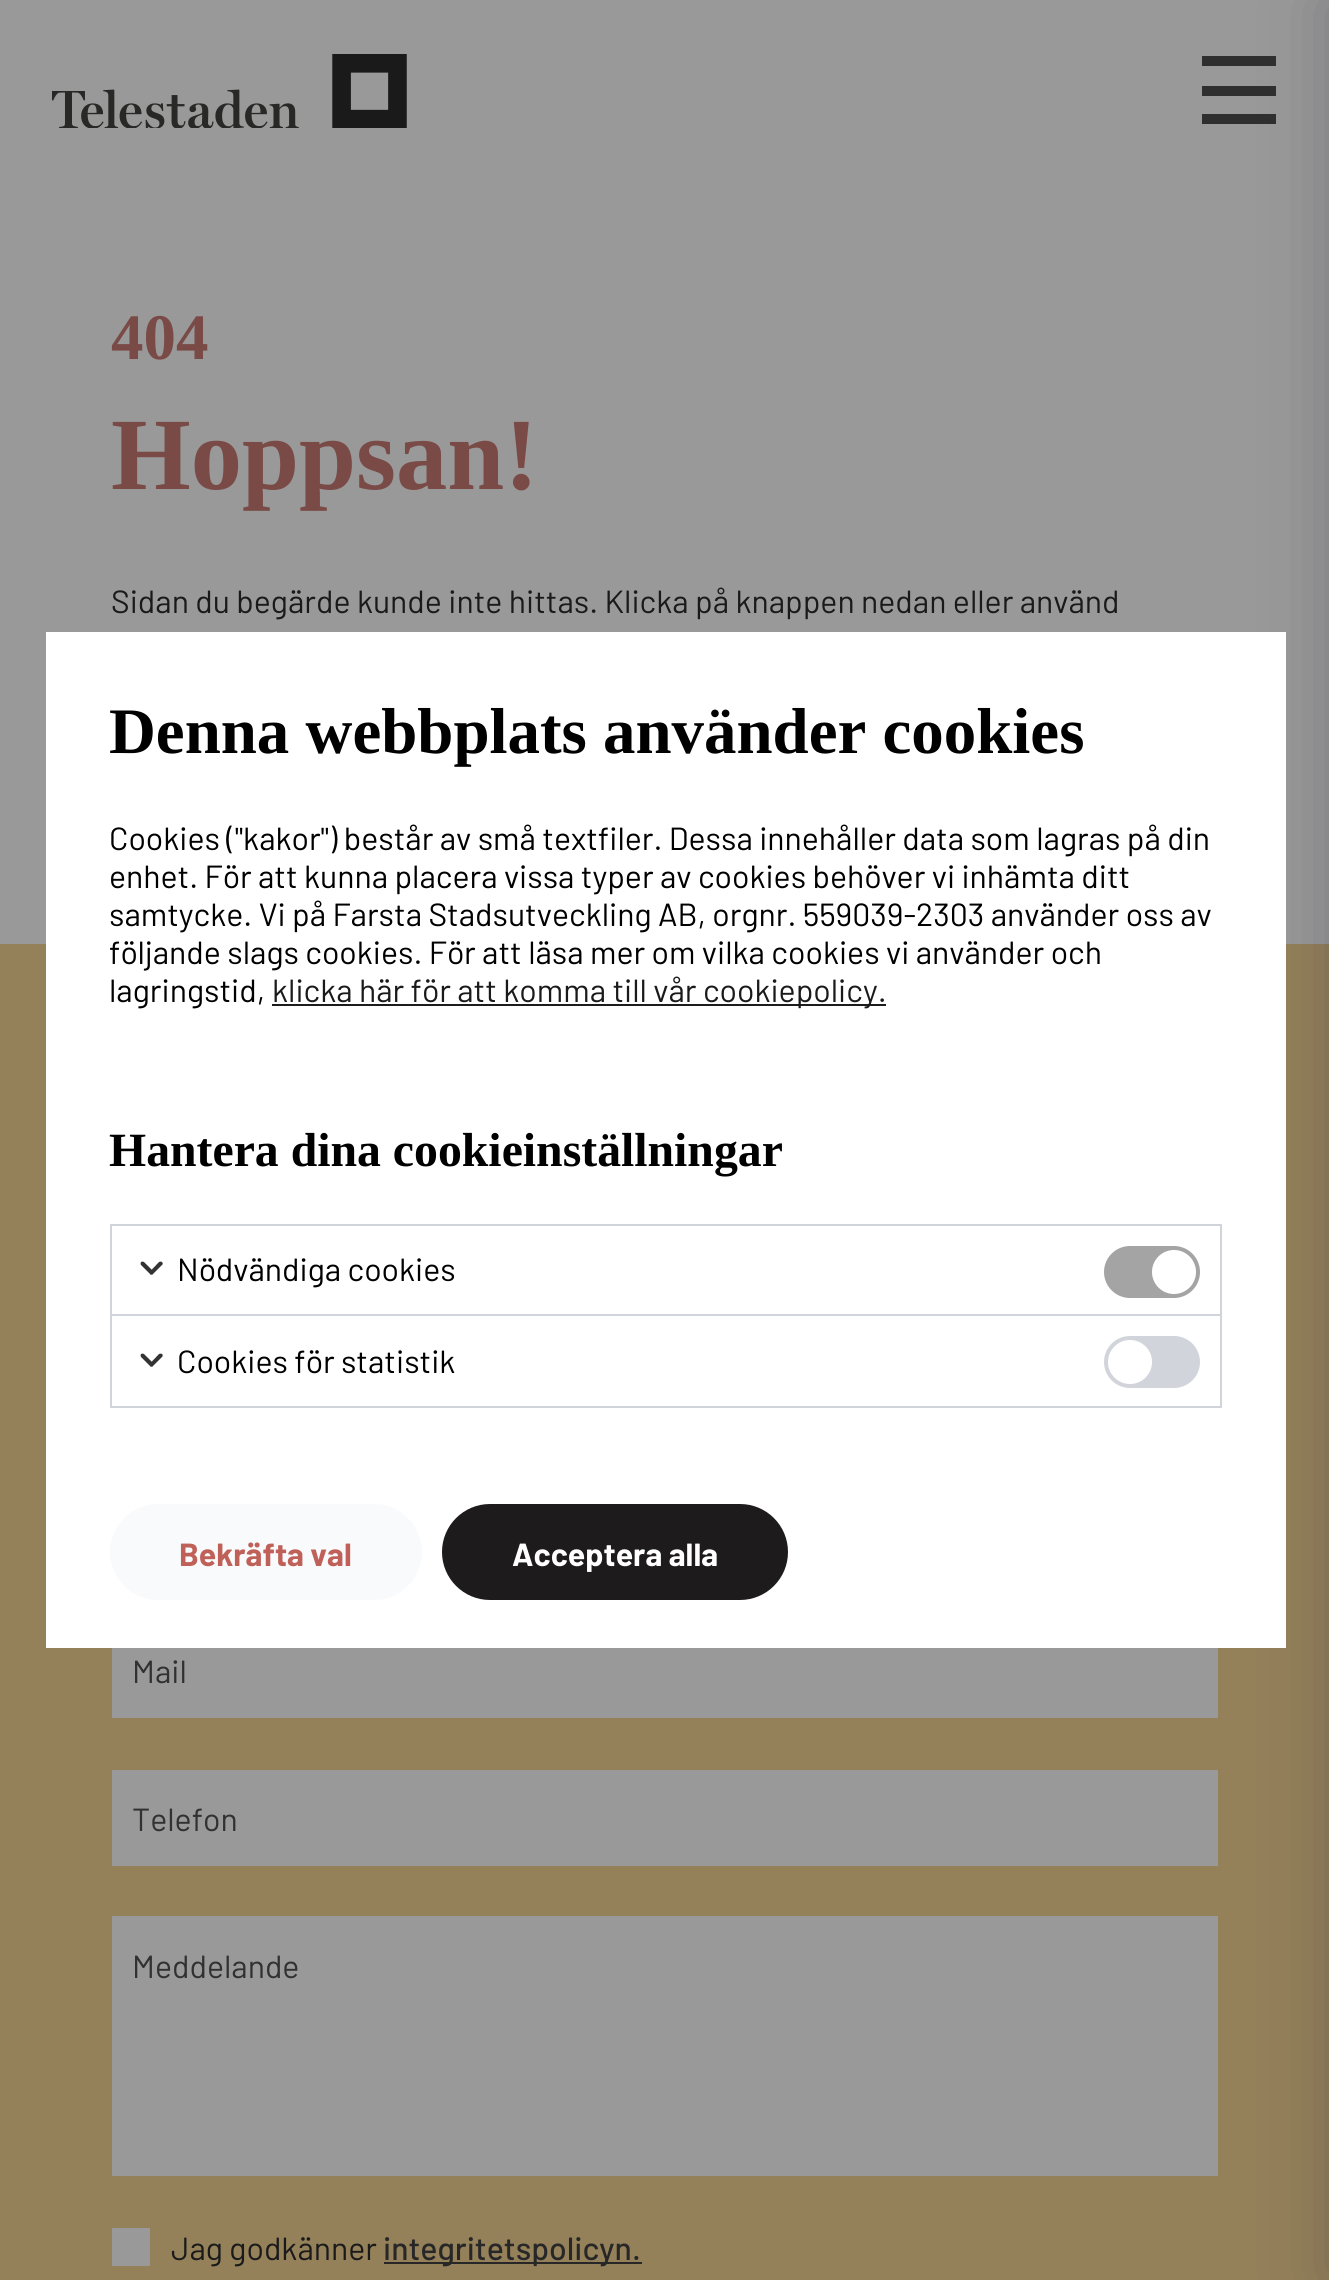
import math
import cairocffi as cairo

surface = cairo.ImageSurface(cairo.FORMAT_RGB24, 1329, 2280)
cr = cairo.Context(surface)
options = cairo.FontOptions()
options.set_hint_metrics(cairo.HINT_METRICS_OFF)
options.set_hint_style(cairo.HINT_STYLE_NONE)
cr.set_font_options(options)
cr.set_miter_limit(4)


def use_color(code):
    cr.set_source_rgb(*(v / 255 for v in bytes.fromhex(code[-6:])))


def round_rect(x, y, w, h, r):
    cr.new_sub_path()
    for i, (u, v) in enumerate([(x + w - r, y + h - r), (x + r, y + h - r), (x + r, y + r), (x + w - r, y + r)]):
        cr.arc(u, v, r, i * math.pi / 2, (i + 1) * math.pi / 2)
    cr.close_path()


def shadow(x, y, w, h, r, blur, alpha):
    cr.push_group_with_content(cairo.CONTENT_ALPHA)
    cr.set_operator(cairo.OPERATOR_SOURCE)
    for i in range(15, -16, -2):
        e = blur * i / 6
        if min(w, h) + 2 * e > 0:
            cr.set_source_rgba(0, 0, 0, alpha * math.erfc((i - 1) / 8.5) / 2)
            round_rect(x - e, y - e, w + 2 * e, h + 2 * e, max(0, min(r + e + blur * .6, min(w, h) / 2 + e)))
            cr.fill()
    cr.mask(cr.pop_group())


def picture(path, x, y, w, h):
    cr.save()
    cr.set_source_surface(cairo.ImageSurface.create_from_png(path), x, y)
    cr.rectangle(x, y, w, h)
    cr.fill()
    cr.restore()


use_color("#999999")
cr.paint()
picture("img1.png", 52, 54, 355, 74)
use_color("#94815a")
cr.rectangle(0, 944, 1329, 1336)
cr.fill()
use_color("#1a1a32")
shadow(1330, 0, 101, 2280, 0, 34, 0.25)
use_color("#302f2f")
cr.rectangle(1202, 86, 74, 10)
cr.fill()
cr.rectangle(1202, 56, 74, 10)
cr.fill()
cr.rectangle(1202, 114, 74, 10)
cr.fill()
cr.select_font_face("Liberation Serif", cairo.FONT_SLANT_NORMAL, cairo.FONT_WEIGHT_BOLD)
cr.set_font_size(64.9)
use_color("#794a46")
cr.move_to(111, 359)
cr.show_text("404")
cr.set_font_size(102.5)
cr.move_to(111, 489)
cr.show_text("Hoppsan!")
cr.select_font_face("Barlow")
cr.set_font_size(32)
use_color("#1a1a1a")
cr.move_to(111, 613)
cr.show_text("Sidan du begärde kunde inte hittas. Klicka på knappen nedan eller använd")
use_color("#ffffff")
cr.rectangle(46, 632, 1240, 1016)
cr.fill()
cr.select_font_face("Liberation Serif", cairo.FONT_SLANT_NORMAL, cairo.FONT_WEIGHT_BOLD)
cr.set_font_size(64.9)
use_color("#000000")
cr.move_to(109, 753)
cr.show_text("Denna webbplats använder cookies")
cr.select_font_face("Barlow")
cr.set_font_size(32)
cr.move_to(109, 850)
cr.show_text("Cookies (\"kakor\") består av små textfiler. Dessa innehåller data som lagras på din")
cr.move_to(109, 888)
cr.show_text("enhet. För att kunna placera vissa typer av cookies behöver vi inhämta ditt")
cr.move_to(109, 926)
cr.show_text("samtycke. Vi på Farsta Stadsutveckling AB, orgnr. 559039-2303 använder oss av")
cr.move_to(109, 964)
cr.show_text("följande slags cookies. För att läsa mer om vilka cookies vi använder och")
cr.move_to(109, 1002)
cr.show_text("lagringstid,")
use_color("#1d1b1b")
cr.rectangle(272, 1004, 614, 2)
cr.fill()
use_color("#1a1a1a")
cr.move_to(272, 1002)
cr.show_text("klicka här för att komma till vår cookiepolicy.")
cr.select_font_face("Liberation Serif", cairo.FONT_SLANT_NORMAL, cairo.FONT_WEIGHT_BOLD)
cr.set_font_size(47.75)
use_color("#000000")
cr.move_to(109, 1166)
cr.show_text("Hantera dina cookieinställningar")
cr.rectangle(111, 1225, 1110, 90)
use_color("#d1d5db")
cr.stroke()
use_color("#333333")
cr.new_path()
cr.move_to(141, 1262)
cr.curve_to(142, 1261.5, 143, 1261.5, 144, 1262)
cr.line_to(154, 1272)
cr.line_to(151, 1275)
cr.line_to(141, 1265)
cr.curve_to(140.5, 1264.5, 140.5, 1263, 141, 1262)
cr.close_path()
cr.fill()
cr.new_path()
cr.move_to(162, 1262)
cr.curve_to(163, 1263, 163, 1264.5, 162, 1265)
cr.line_to(152, 1275)
cr.line_to(149.5, 1272)
cr.line_to(159, 1262)
cr.curve_to(160, 1261.5, 161.5, 1261.5, 162, 1262)
cr.close_path()
cr.fill()
cr.select_font_face("Barlow")
cr.set_font_size(32)
use_color("#000000")
cr.move_to(177, 1281)
cr.show_text("Nödvändiga cookies")
use_color("#a5a4a4")
round_rect(1104, 1246, 96, 52, 26)
cr.fill()
use_color("#ffffff")
cr.arc(1174, 1272, 22, 0, 2 * math.pi)
cr.fill()
use_color("#d1d5db")
cr.rectangle(1220, 1316, 2, 92)
cr.fill()
cr.rectangle(110, 1406, 1112, 2)
cr.fill()
cr.rectangle(110, 1316, 2, 92)
cr.fill()
use_color("#333333")
cr.new_path()
cr.move_to(141, 1354)
cr.curve_to(142, 1353.5, 143, 1353.5, 144, 1354)
cr.line_to(154, 1364)
cr.line_to(151, 1367)
cr.line_to(141, 1357)
cr.curve_to(140.5, 1356, 140.5, 1355, 141, 1354)
cr.close_path()
cr.fill()
cr.new_path()
cr.move_to(162, 1354)
cr.curve_to(163, 1355, 163, 1356, 162, 1357)
cr.line_to(152, 1367)
cr.line_to(149.5, 1364)
cr.line_to(159, 1354)
cr.curve_to(160, 1353.5, 161.5, 1353.5, 162, 1354)
cr.close_path()
cr.fill()
use_color("#000000")
cr.move_to(177, 1373)
cr.show_text("Cookies för statistik")
use_color("#d1d5db")
round_rect(1104, 1336, 96, 52, 26)
cr.fill()
use_color("#ffffff")
cr.arc(1130, 1362, 22, 0, 2 * math.pi)
cr.fill()
use_color("#f9fafb")
round_rect(110, 1504, 312, 96, 48)
cr.fill()
cr.select_font_face("Barlow", cairo.FONT_SLANT_NORMAL, cairo.FONT_WEIGHT_BOLD)
use_color("#bf6059")
cr.move_to(179, 1566)
cr.show_text("Bekräfta val")
use_color("#1d1b1b")
round_rect(442, 1504, 346, 96, 48)
cr.fill()
use_color("#ffffff")
cr.move_to(512, 1566)
cr.show_text("Acceptera alla")
use_color("#999999")
cr.rectangle(112, 1648, 1106, 70)
cr.fill()
cr.select_font_face("Barlow")
use_color("#313131")
cr.move_to(132, 1683)
cr.show_text("Mail")
use_color("#999999")
cr.rectangle(112, 1770, 1106, 96)
cr.fill()
use_color("#313131")
cr.move_to(132, 1831)
cr.show_text("Telefon")
use_color("#999999")
cr.rectangle(112, 1916, 1106, 260)
cr.fill()
use_color("#313131")
cr.move_to(132, 1978)
cr.show_text("Meddelande")
use_color("#999999")
cr.rectangle(112, 2228, 38, 38)
cr.fill()
use_color("#1a1a1a")
cr.move_to(171, 2260)
cr.show_text("Jag godkänner")
use_color("#282727")
cr.rectangle(384, 2262, 258, 2)
cr.fill()
cr.select_font_face("Barlow Medium")
cr.move_to(383, 2260)
cr.show_text("integritetspolicyn.")
surface.write_to_png("result.png")
